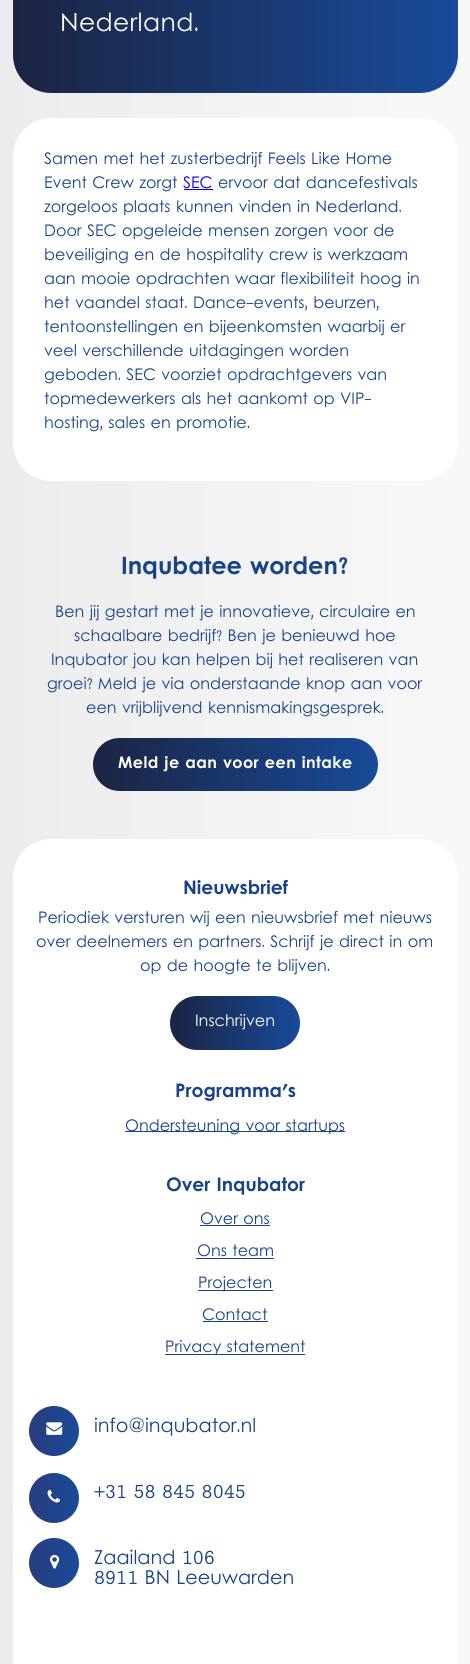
import math
import cairocffi as cairo

surface = cairo.ImageSurface(cairo.FORMAT_RGB24, 470, 1664)
cr = cairo.Context(surface)
options = cairo.FontOptions()
options.set_hint_metrics(cairo.HINT_METRICS_OFF)
options.set_hint_style(cairo.HINT_STYLE_NONE)
cr.set_font_options(options)
cr.set_miter_limit(4)


def use_color(code):
    cr.set_source_rgb(*(v / 255 for v in bytes.fromhex(code[-6:])))


def spaced_text(x, y, s, letter, word):
    cr.move_to(x, y)
    for ch in s:
        cr.show_text(ch)
        cr.rel_move_to(letter + word * (ch == ' '), 0)


def round_rect(x, y, w, h, r):
    cr.new_sub_path()
    for i, (u, v) in enumerate([(x + w - r, y + h - r), (x + r, y + h - r), (x + r, y + r), (x + w - r, y + r)]):
        cr.arc(u, v, r, i * math.pi / 2, (i + 1) * math.pi / 2)
    cr.close_path()


def picture(path, x, y, w, h):
    cr.save()
    cr.set_source_surface(cairo.ImageSurface.create_from_png(path), x, y)
    cr.rectangle(x, y, w, h)
    cr.fill()
    cr.restore()


use_color("#ffffff")
cr.paint()
gradient = cairo.LinearGradient(470, 324, 0, 324)
gradient.add_color_stop_rgba(0.13, 0.969, 0.969, 0.969, 1)
gradient.add_color_stop_rgba(1, 0.925, 0.925, 0.925, 1)
cr.set_source(gradient)
cr.rectangle(0, 0, 470, 1664)
cr.fill()
gradient = cairo.LinearGradient(458, -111, 13, -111)
gradient.add_color_stop_rgba(0, 0.094, 0.294, 0.604, 1)
gradient.add_color_stop_rgba(1, 0.11, 0.141, 0.259, 1)
cr.set_source(gradient)
round_rect(13, -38, 445, 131, 38)
cr.fill()
cr.select_font_face("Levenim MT")
cr.set_font_size(25)
use_color("#ffffff")
spaced_text(60, 31, "Nederland.", 0.4, 0)
round_rect(13, 118, 445, 363, 38)
cr.fill()
cr.set_font_size(16)
use_color("#184389")
cr.move_to(44, 164)
cr.show_text("Samen met het zusterbedrijf Feels Like Home")
cr.move_to(44, 188)
cr.show_text("Event Crew zorgt")
use_color("#0000ee")
cr.move_to(183, 188)
cr.show_text("SEC")
cr.rectangle(184, 189, 29, 1)
cr.fill()
use_color("#184389")
cr.move_to(218, 188)
cr.show_text("ervoor dat dancefestivals")
cr.move_to(44, 212)
cr.show_text("zorgeloos plaats kunnen vinden in Nederland.")
cr.move_to(44, 236)
cr.show_text("Door SEC opgeleide mensen zorgen voor de")
cr.move_to(44, 260)
cr.show_text("beveiliging en de hospitality crew is werkzaam")
cr.move_to(44, 284)
cr.show_text("aan mooie opdrachten waar flexibiliteit hoog in")
cr.move_to(44, 308)
cr.show_text("het vaandel staat. Dance-events, beurzen,")
cr.move_to(44, 332)
cr.show_text("tentoonstellingen en bijeenkomsten waarbij er")
cr.move_to(44, 356)
cr.show_text("veel verschillende uitdagingen worden")
cr.move_to(44, 380)
cr.show_text("geboden. SEC voorziet opdrachtgevers van")
cr.move_to(44, 404)
cr.show_text("topmedewerkers als het aankomt op VIP-")
cr.move_to(44, 428)
cr.show_text("hosting, sales en promotie.")
cr.select_font_face("Levenim MT", cairo.FONT_SLANT_NORMAL, cairo.FONT_WEIGHT_BOLD)
cr.set_font_size(24)
cr.move_to(121, 574)
cr.show_text("Inqubatee worden?")
cr.select_font_face("Levenim MT")
cr.set_font_size(16)
cr.move_to(55, 617)
cr.show_text("Ben jij gestart met je innovatieve, circulaire en")
cr.move_to(74, 641)
cr.show_text("schaalbare bedrijf? Ben je benieuwd hoe")
cr.move_to(51, 665)
cr.show_text("Inqubator jou kan helpen bij het realiseren van")
cr.move_to(47, 689)
cr.show_text("groei? Meld je via onderstaande knop aan voor")
cr.move_to(86, 713)
cr.show_text("een vrijblijvend kennismakingsgesprek.")
gradient = cairo.LinearGradient(378, 764, 93, 764)
gradient.add_color_stop_rgba(0, 0.094, 0.294, 0.604, 1)
gradient.add_color_stop_rgba(1, 0.11, 0.141, 0.259, 1)
cr.set_source(gradient)
round_rect(93, 738, 285, 53, 26.5)
cr.fill()
cr.select_font_face("Levenim MT", cairo.FONT_SLANT_NORMAL, cairo.FONT_WEIGHT_BOLD)
use_color("#ffffff")
spaced_text(118, 768, "Meld je aan voor een intake", 0.4, 0)
cr.new_path()
cr.move_to(51, 839)
cr.line_to(420, 839)
cr.curve_to(441, 839, 458, 856, 458, 877)
cr.line_to(458, 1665)
cr.line_to(13, 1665)
cr.line_to(13, 877)
cr.curve_to(13, 856, 30, 839, 51, 839)
cr.close_path()
cr.fill()
cr.set_font_size(18.75)
use_color("#184389")
cr.move_to(183, 894)
cr.show_text("Nieuwsbrief")
cr.select_font_face("Levenim MT")
cr.set_font_size(16)
cr.move_to(38, 923)
cr.show_text("Periodiek versturen wij een nieuwsbrief met nieuws")
cr.move_to(36, 947)
cr.show_text("over deelnemers en partners. Schrijf je direct in om")
cr.move_to(140, 971)
cr.show_text("op de hoogte te blijven.")
gradient = cairo.LinearGradient(300, 1023, 170, 1023)
gradient.add_color_stop_rgba(0, 0.094, 0.294, 0.604, 1)
gradient.add_color_stop_rgba(1, 0.11, 0.141, 0.259, 1)
cr.set_source(gradient)
round_rect(170, 996, 130, 54, 27)
cr.fill()
use_color("#ffffff")
cr.move_to(195, 1026)
cr.show_text("Inschrijven")
cr.select_font_face("Levenim MT", cairo.FONT_SLANT_NORMAL, cairo.FONT_WEIGHT_BOLD)
cr.set_font_size(18.75)
use_color("#184389")
cr.move_to(175, 1097)
cr.show_text("Programma's")
cr.rectangle(125, 1131, 220, 1)
cr.fill()
cr.select_font_face("Levenim MT")
cr.set_font_size(16)
cr.move_to(125, 1131)
cr.show_text("Ondersteuning voor startups")
cr.select_font_face("Levenim MT", cairo.FONT_SLANT_NORMAL, cairo.FONT_WEIGHT_BOLD)
cr.set_font_size(18.75)
cr.move_to(166, 1191)
cr.show_text("Over Inqubator")
cr.select_font_face("Levenim MT")
cr.set_font_size(16)
cr.move_to(200, 1224)
cr.show_text("Over ons")
cr.rectangle(200, 1225, 70, 1)
cr.fill()
cr.move_to(197, 1256)
cr.show_text("Ons team")
cr.rectangle(196, 1258, 78, 1)
cr.fill()
cr.rectangle(198, 1290, 75, 1)
cr.fill()
cr.move_to(198, 1288)
cr.show_text("Projecten")
cr.move_to(202, 1320)
cr.show_text("Contact")
cr.rectangle(203, 1321, 65, 1)
cr.fill()
cr.rectangle(165, 1354, 140, 1)
cr.fill()
cr.move_to(165, 1352)
cr.show_text("Privacy statement")
gradient = cairo.LinearGradient(79, 1431, 29, 1431)
gradient.add_color_stop_rgba(0, 0.094, 0.294, 0.604, 1)
gradient.add_color_stop_rgba(1, 0.169, 0.235, 0.49, 1)
cr.set_source(gradient)
cr.new_path()
cr.arc(54, 1431, 25, 0, 2 * math.pi)
cr.fill()
picture("img1.png", 46, 1422, 17, 13)
cr.set_font_size(19.25)
use_color("#184389")
cr.move_to(94, 1432)
cr.show_text("info@inqubator.nl")
gradient = cairo.LinearGradient(79, 1498, 29, 1498)
gradient.add_color_stop_rgba(0, 0.094, 0.294, 0.604, 1)
gradient.add_color_stop_rgba(1, 0.169, 0.235, 0.49, 1)
cr.set_source(gradient)
cr.new_path()
cr.arc(54, 1498, 25, 0, 2 * math.pi)
cr.fill()
picture("img2.png", 47, 1489, 13, 14)
use_color("#184389")
cr.move_to(94, 1498)
cr.show_text("+31 58 845 8045")
gradient = cairo.LinearGradient(79, 1563, 29, 1563)
gradient.add_color_stop_rgba(0, 0.094, 0.294, 0.604, 1)
gradient.add_color_stop_rgba(1, 0.169, 0.235, 0.49, 1)
cr.set_source(gradient)
cr.new_path()
cr.arc(54, 1563, 25, 0, 2 * math.pi)
cr.fill()
picture("img3.png", 50, 1554, 10, 15)
use_color("#184389")
cr.move_to(94, 1564)
cr.show_text("Zaailand 106")
cr.move_to(94, 1584)
cr.show_text("8911 BN Leeuwarden")
surface.write_to_png("result.png")
